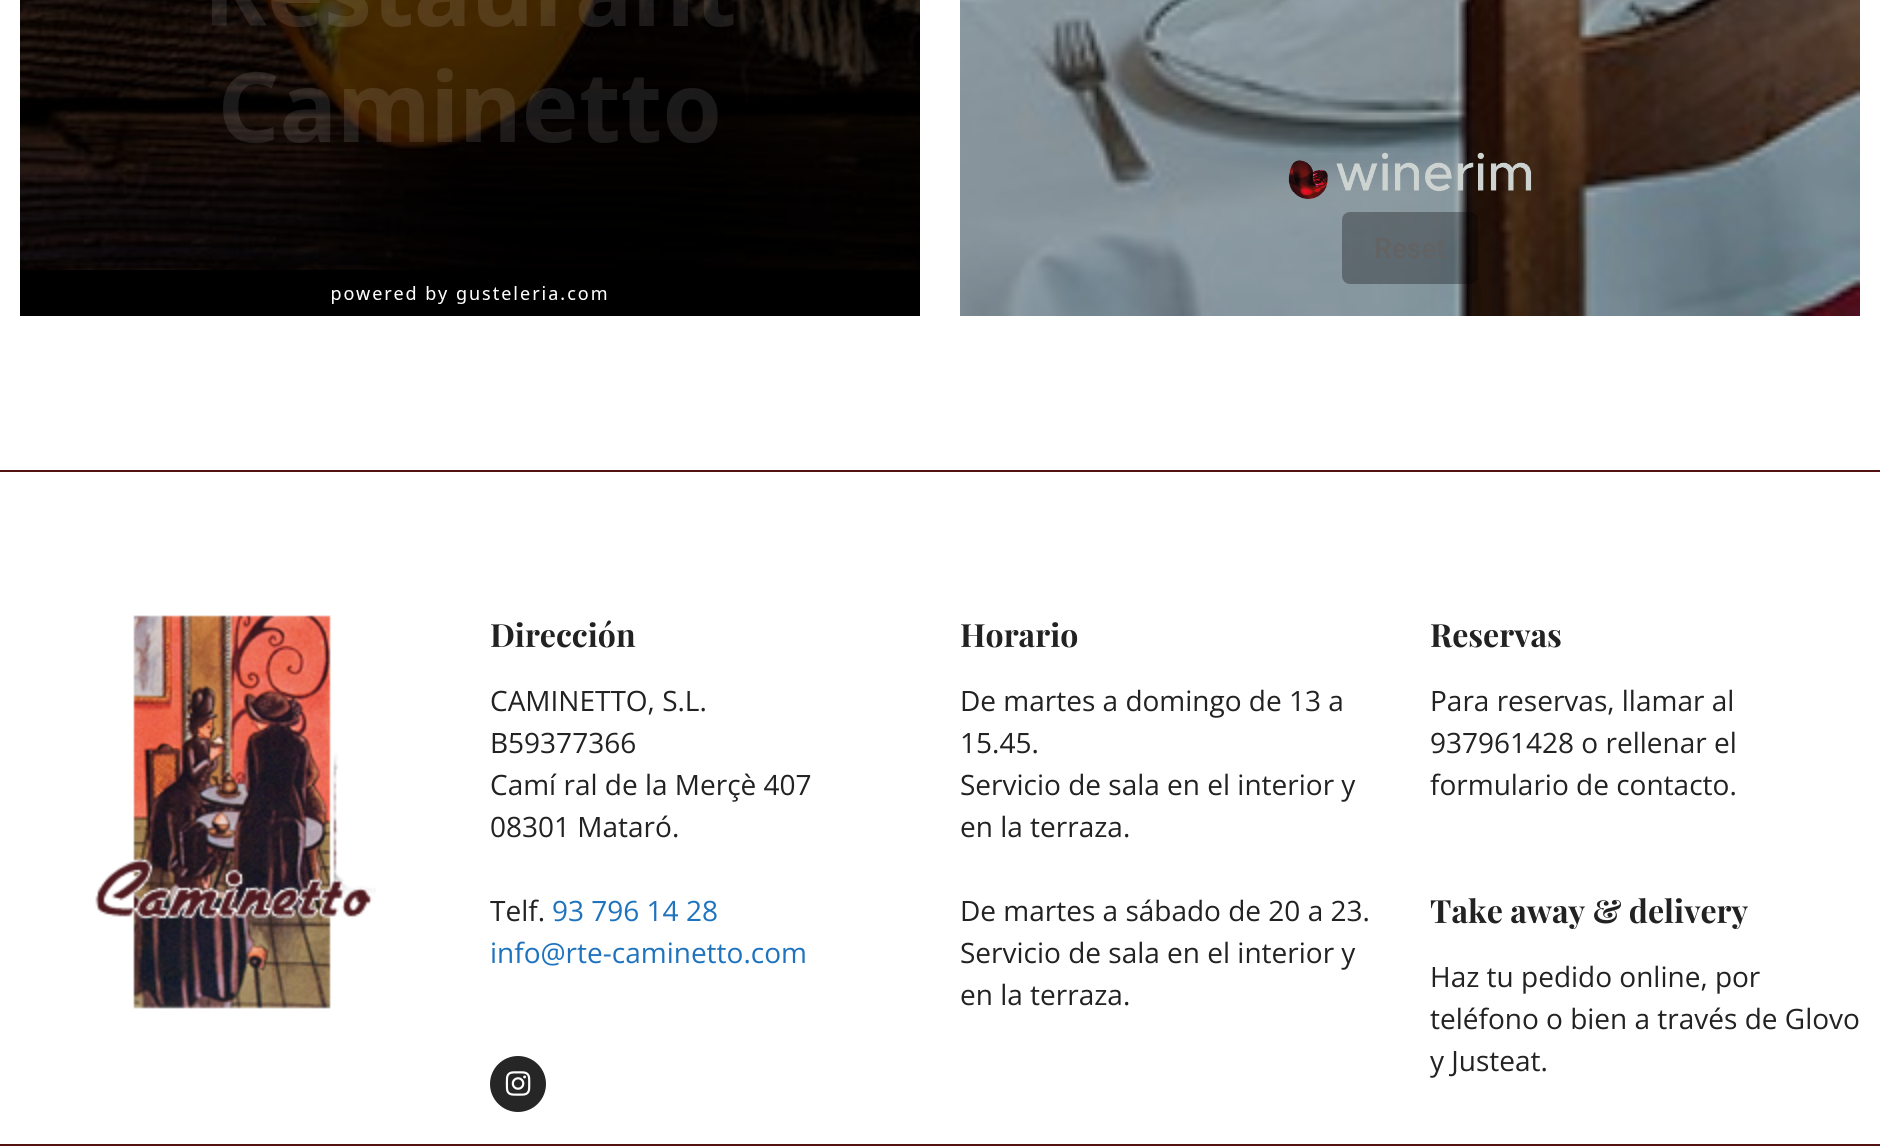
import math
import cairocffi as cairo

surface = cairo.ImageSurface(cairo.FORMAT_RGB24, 1880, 1146)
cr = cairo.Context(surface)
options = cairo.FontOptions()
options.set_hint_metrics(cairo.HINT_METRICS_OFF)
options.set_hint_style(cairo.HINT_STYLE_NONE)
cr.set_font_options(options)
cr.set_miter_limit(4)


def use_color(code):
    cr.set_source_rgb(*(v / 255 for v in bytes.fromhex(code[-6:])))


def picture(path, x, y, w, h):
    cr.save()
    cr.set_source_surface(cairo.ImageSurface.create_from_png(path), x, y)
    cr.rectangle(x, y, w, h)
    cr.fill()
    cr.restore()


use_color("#ffffff")
cr.paint()
picture("img1.png", 20, 0, 900, 316)
picture("img2.png", 960, 0, 900, 316)
use_color("#511111")
cr.rectangle(0, 470, 1880, 2)
cr.fill()
picture("img3.png", 95, 615, 281, 394)
cr.select_font_face("Playfair Display", cairo.FONT_SLANT_NORMAL, cairo.FONT_WEIGHT_BOLD)
cr.set_font_size(32)
use_color("#222222")
cr.move_to(490, 647)
cr.show_text("Dirección")
cr.select_font_face("Open Sans")
cr.set_font_size(28)
cr.move_to(490, 711)
cr.show_text("CAMINETTO, S.L.")
cr.move_to(490, 753)
cr.show_text("B59377366")
cr.move_to(490, 795)
cr.show_text("Camí ral de la Merçè 407")
cr.move_to(490, 837)
cr.show_text("08301 Mataró.")
cr.move_to(490, 921)
cr.show_text("Telf.")
use_color("#1e73be")
cr.move_to(552, 921)
cr.show_text("93 796 14 28")
cr.move_to(490, 963)
cr.show_text("info@rte-caminetto.com")
use_color("#262626")
cr.new_path()
cr.arc(518, 1084, 28, 0, 2 * math.pi)
cr.fill()
picture("img4.png", 505, 1071, 26, 25)
cr.select_font_face("Playfair Display", cairo.FONT_SLANT_NORMAL, cairo.FONT_WEIGHT_BOLD)
cr.set_font_size(32)
use_color("#222222")
cr.move_to(960, 647)
cr.show_text("Horario")
cr.select_font_face("Open Sans")
cr.set_font_size(28)
cr.move_to(960, 711)
cr.show_text("De martes a domingo de 13 a")
cr.move_to(960, 753)
cr.show_text("15.45.")
cr.move_to(960, 795)
cr.show_text("Servicio de sala en el interior y")
cr.move_to(960, 837)
cr.show_text("en la terraza.")
cr.move_to(960, 921)
cr.show_text("De martes a sábado de 20 a 23.")
cr.move_to(960, 963)
cr.show_text("Servicio de sala en el interior y")
cr.move_to(960, 1005)
cr.show_text("en la terraza.")
cr.select_font_face("Playfair Display", cairo.FONT_SLANT_NORMAL, cairo.FONT_WEIGHT_BOLD)
cr.set_font_size(32)
cr.move_to(1430, 647)
cr.show_text("Reservas")
cr.select_font_face("Open Sans")
cr.set_font_size(28)
cr.move_to(1430, 711)
cr.show_text("Para reservas, llamar al")
cr.move_to(1430, 753)
cr.show_text("937961428 o rellenar el")
cr.move_to(1430, 795)
cr.show_text("formulario de contacto.")
cr.select_font_face("Playfair Display", cairo.FONT_SLANT_NORMAL, cairo.FONT_WEIGHT_BOLD)
cr.set_font_size(32)
cr.move_to(1430, 923)
cr.show_text("Take away & delivery")
cr.select_font_face("Open Sans")
cr.set_font_size(28)
cr.move_to(1430, 987)
cr.show_text("Haz tu pedido online, por")
cr.move_to(1430, 1029)
cr.show_text("teléfono o bien a través de Glovo")
cr.move_to(1430, 1071)
cr.show_text("y Justeat.")
use_color("#511111")
cr.rectangle(0, 1144, 1880, 2)
cr.fill()
surface.write_to_png("result.png")
